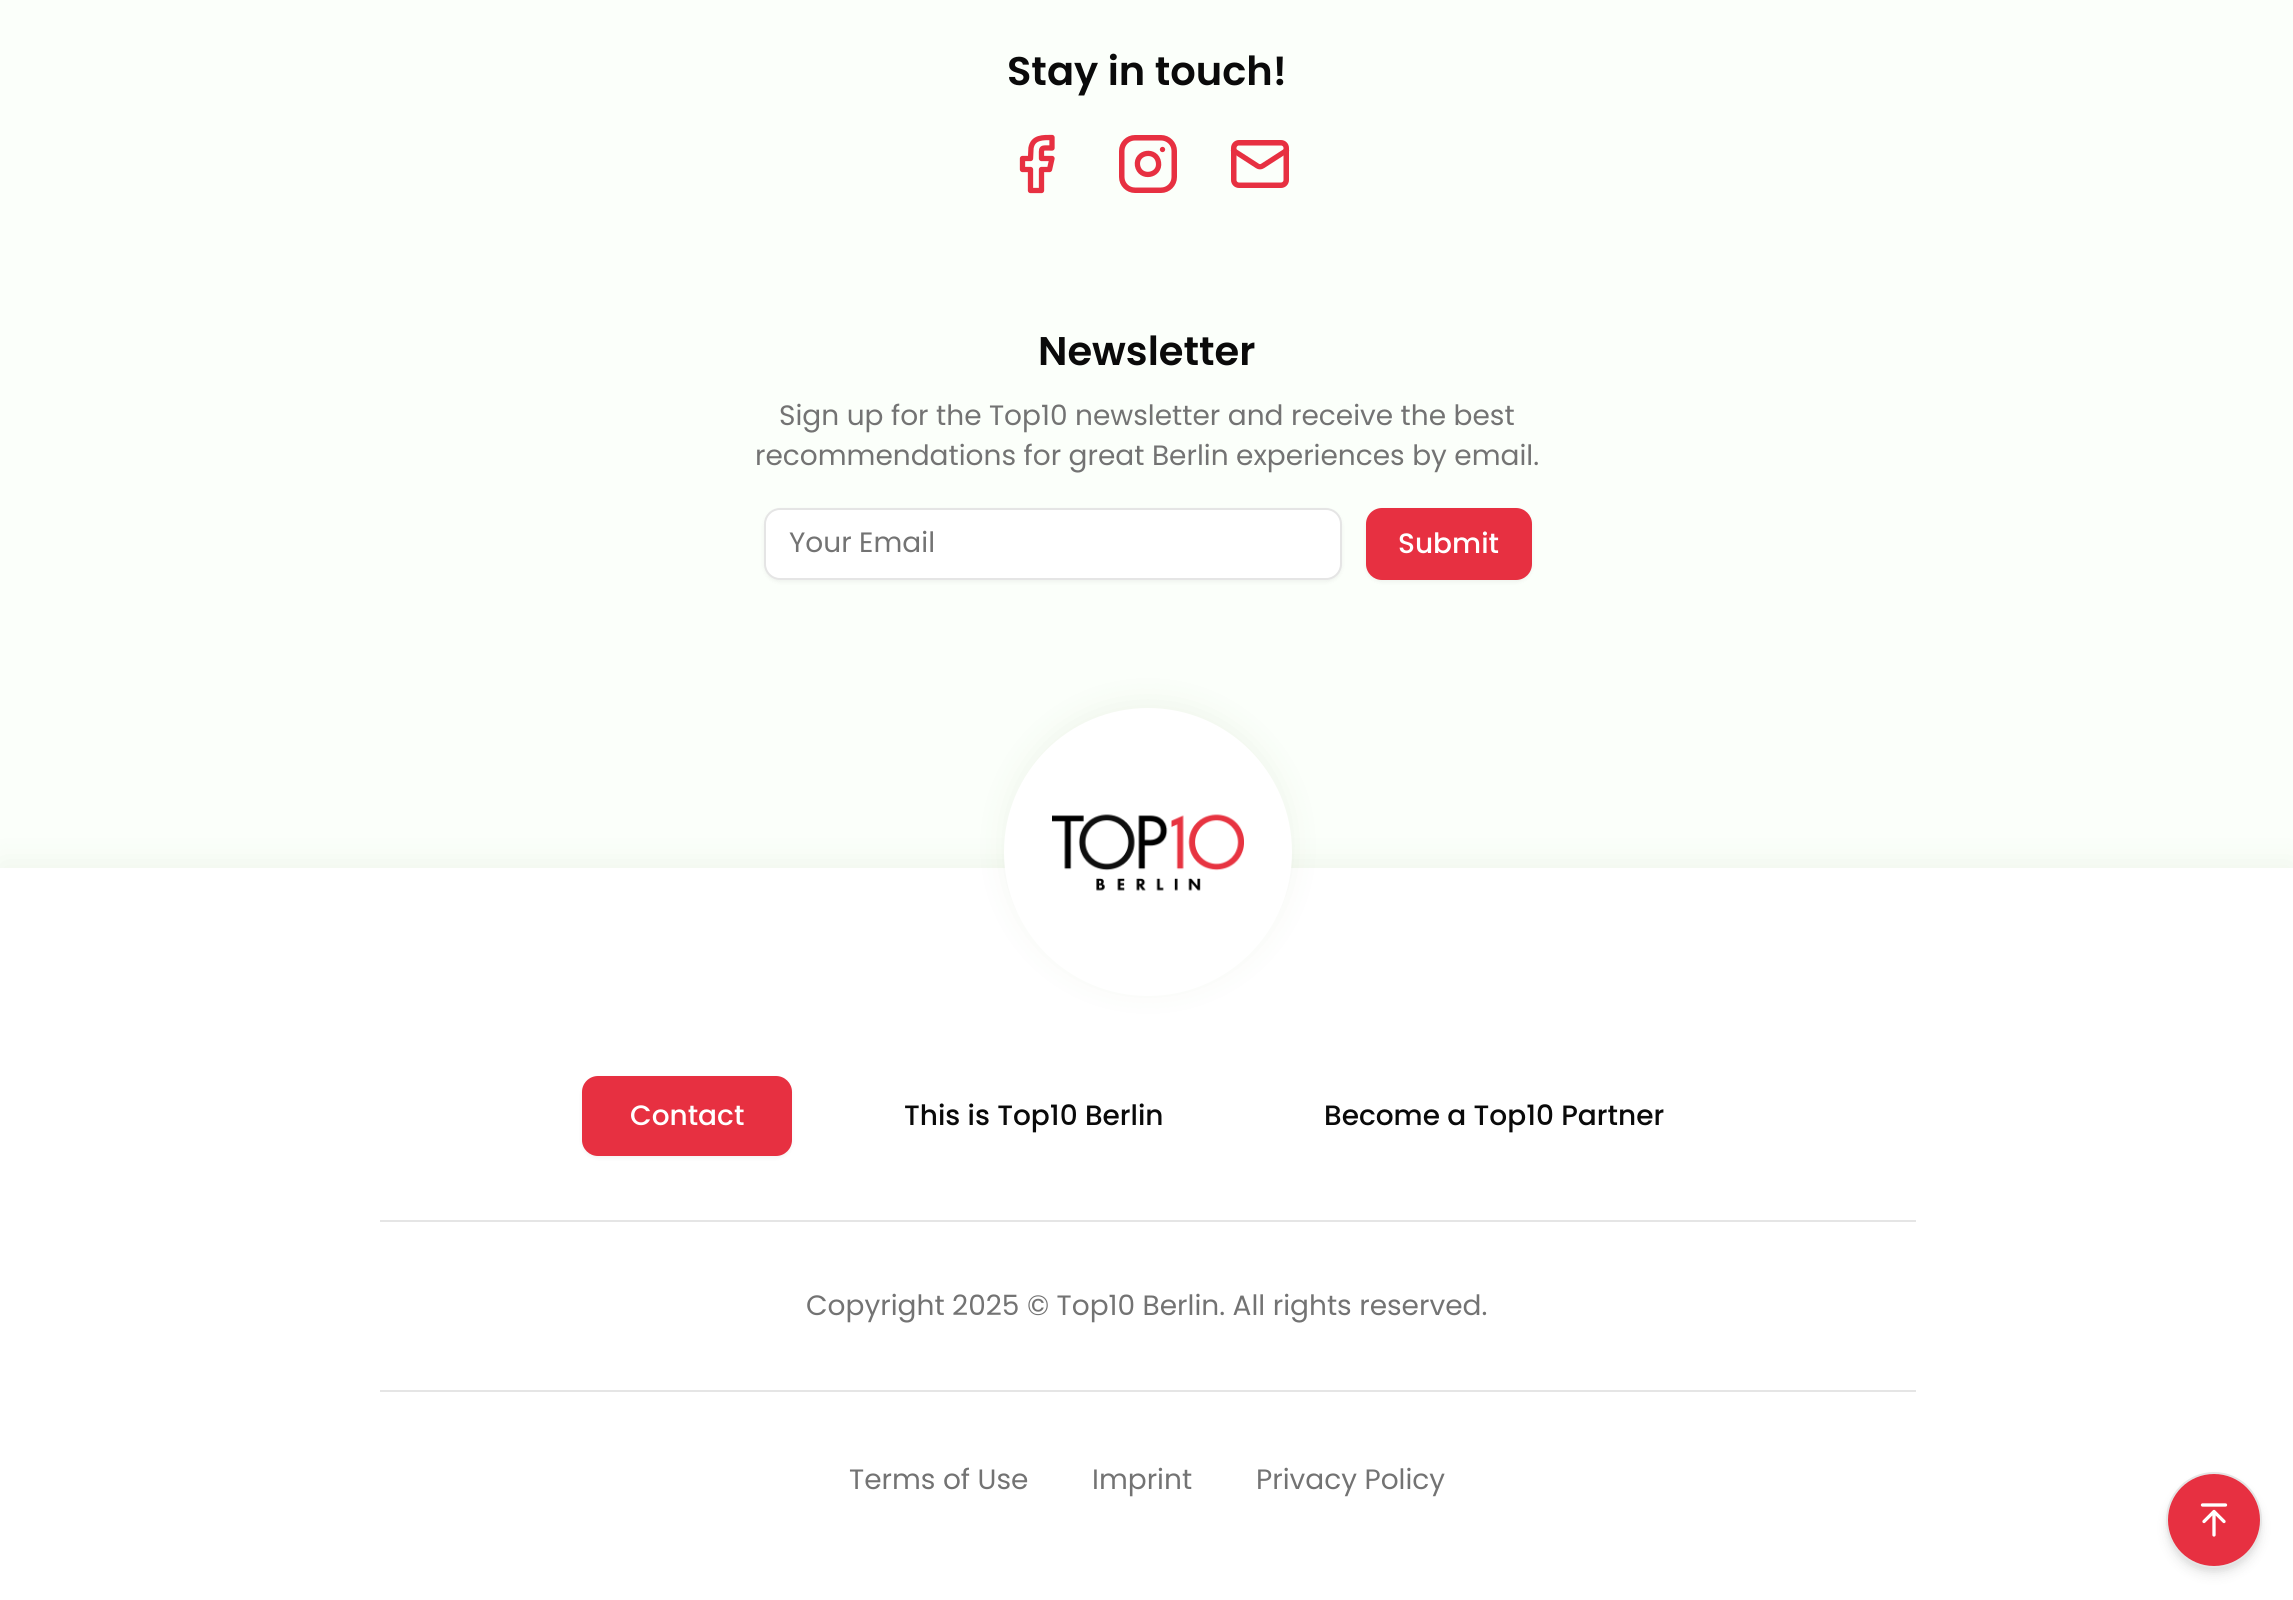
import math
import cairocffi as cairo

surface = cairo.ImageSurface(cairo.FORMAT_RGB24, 2293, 1600)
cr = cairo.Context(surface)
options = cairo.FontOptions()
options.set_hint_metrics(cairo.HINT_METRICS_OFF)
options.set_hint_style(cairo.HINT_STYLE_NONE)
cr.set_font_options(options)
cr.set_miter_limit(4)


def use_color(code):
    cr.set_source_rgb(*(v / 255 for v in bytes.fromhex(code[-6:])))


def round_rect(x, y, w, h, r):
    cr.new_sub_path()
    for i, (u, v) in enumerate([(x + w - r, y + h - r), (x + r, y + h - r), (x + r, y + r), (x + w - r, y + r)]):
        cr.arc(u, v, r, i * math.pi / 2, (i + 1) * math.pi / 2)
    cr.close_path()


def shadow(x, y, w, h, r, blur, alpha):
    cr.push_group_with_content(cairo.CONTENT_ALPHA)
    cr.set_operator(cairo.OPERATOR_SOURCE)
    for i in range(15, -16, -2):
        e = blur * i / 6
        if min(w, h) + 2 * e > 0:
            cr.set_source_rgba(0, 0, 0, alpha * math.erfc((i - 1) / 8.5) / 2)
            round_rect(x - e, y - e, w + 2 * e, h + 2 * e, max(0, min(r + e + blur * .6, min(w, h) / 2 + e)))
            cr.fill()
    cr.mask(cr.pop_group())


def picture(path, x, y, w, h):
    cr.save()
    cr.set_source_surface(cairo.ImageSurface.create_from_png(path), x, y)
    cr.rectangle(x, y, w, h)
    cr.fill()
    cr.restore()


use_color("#fbfffa")
cr.paint()
cr.select_font_face("Poppins SemiBold")
cr.set_font_size(40)
use_color("#0a0a0a")
cr.move_to(1007, 85)
cr.show_text("Stay in touch!")
cr.new_path()
cr.move_to(1052, 137.5)
cr.curve_to(1043, 137.5, 1033, 137, 1031, 148)
cr.line_to(1030.5, 158.5)
cr.line_to(1022.5, 158.5)
cr.line_to(1022.5, 169.5)
cr.line_to(1030.5, 169.5)
cr.line_to(1030.5, 190.5)
cr.line_to(1041.5, 190.5)
cr.line_to(1041.5, 169.5)
cr.line_to(1049.5, 169.5)
cr.line_to(1052, 158.5)
cr.line_to(1041.5, 158.5)
cr.curve_to(1041.5, 146.5, 1040, 148, 1052, 148)
cr.close_path()
use_color("#e73041")
cr.set_line_width(5.3)
cr.set_line_cap(cairo.LINE_CAP_ROUND)
cr.set_line_join(cairo.LINE_JOIN_ROUND)
cr.stroke()
round_rect(1121.75, 137.75, 52.5, 52.5, 13.25)
cr.set_line_width(5.5)
cr.set_line_cap(cairo.LINE_CAP_BUTT)
cr.set_line_join(cairo.LINE_JOIN_MITER)
cr.stroke()
cr.new_path()
cr.move_to(1158.5, 162.5)
cr.curve_to(1160.5, 176, 1140, 179.5, 1137.5, 165.5)
cr.curve_to(1135.5, 151.5, 1156.5, 148.5, 1158.5, 162.5)
cr.close_path()
cr.move_to(1162.5, 149.5)
cr.line_to(1162.5, 149.5)
cr.set_line_width(5.3)
cr.set_line_cap(cairo.LINE_CAP_ROUND)
cr.set_line_join(cairo.LINE_JOIN_ROUND)
cr.stroke()
cr.new_path()
cr.move_to(1286.5, 150.5)
cr.line_to(1262.5, 166)
cr.curve_to(1261, 167, 1259, 167, 1257.5, 166)
cr.line_to(1233.5, 150.5)
cr.stroke()
round_rect(1233.75, 142.75, 52.5, 42.5, 5.25)
cr.set_line_width(5.5)
cr.set_line_cap(cairo.LINE_CAP_BUTT)
cr.set_line_join(cairo.LINE_JOIN_MITER)
cr.stroke()
use_color("#0a0a0a")
cr.move_to(1038, 365)
cr.show_text("Newsletter")
cr.select_font_face("Poppins")
cr.set_font_size(28)
use_color("#737373")
cr.move_to(779, 425)
cr.show_text("Sign up for the Top10 newsletter and receive the best")
cr.move_to(755, 465)
cr.show_text("recommendations for great Berlin experiences by email.")
use_color("#000000")
shadow(764, 510, 578, 72, 16, 2, 0.05)
use_color("#ffffff")
round_rect(765, 509, 576, 70, 15)
cr.fill_preserve()
use_color("#e5e5e5")
cr.set_line_width(2)
cr.stroke()
use_color("#737373")
cr.move_to(789, 552)
cr.show_text("Your Email")
use_color("#000000")
shadow(1366, 510, 166, 72, 16, 2, 0.05)
use_color("#e73041")
round_rect(1366, 508, 166, 72, 16)
cr.fill()
cr.select_font_face("Poppins Medium")
use_color("#ffffff")
cr.move_to(1398, 553)
cr.show_text("Submit")
use_color("#315908")
shadow(0, 862, 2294, 732, 0, 16, 0.06)
use_color("#ffffff")
cr.rectangle(0, 868, 2293, 732)
cr.fill()
use_color("#315908")
shadow(1004, 702, 288, 288, 144, 16, 0.06)
use_color("#ffffff")
cr.arc(1148, 852, 144, 0, 2 * math.pi)
cr.fill()
picture("img1.png", 1052, 814, 192, 77)
use_color("#000000")
shadow(582, 1078, 210, 80, 16, 2, 0.05)
use_color("#e73041")
round_rect(582, 1076, 210, 80, 16)
cr.fill()
use_color("#ffffff")
cr.move_to(630, 1125)
cr.show_text("Contact")
use_color("#0a0a0a")
cr.move_to(904, 1125)
cr.show_text("This is Top10 Berlin")
cr.move_to(1324, 1125)
cr.show_text("Become a Top10 Partner")
use_color("#e5e5e5")
cr.rectangle(380, 1220, 1536, 2)
cr.fill()
cr.select_font_face("Poppins")
use_color("#737373")
cr.move_to(806, 1315)
cr.show_text("Copyright 2025 © Top10 Berlin. All rights reserved.")
use_color("#e5e5e5")
cr.rectangle(380, 1390, 1536, 2)
cr.fill()
use_color("#737373")
cr.move_to(849, 1489)
cr.show_text("Terms of Use")
cr.move_to(1092, 1489)
cr.show_text("Imprint")
cr.move_to(1256, 1489)
cr.show_text("Privacy Policy")
use_color("#000000")
shadow(2170, 1480, 88, 88, 44, 4, 0.1)
shadow(2168, 1482, 92, 92, 46, 6, 0.1)
use_color("#e73041")
cr.arc(2214, 1520, 47, 0, 2 * math.pi)
cr.fill_preserve()
use_color("#e5e5e5")
cr.stroke()
cr.new_path()
cr.move_to(2202.5, 1505)
cr.line_to(2225.5, 1505)
cr.move_to(2224, 1521.5)
cr.line_to(2214, 1511.5)
cr.line_to(2204, 1521.5)
cr.move_to(2214, 1511.5)
cr.line_to(2214, 1535)
use_color("#ffffff")
cr.set_line_width(3.3)
cr.set_line_cap(cairo.LINE_CAP_ROUND)
cr.set_line_join(cairo.LINE_JOIN_ROUND)
cr.stroke()
surface.write_to_png("result.png")
